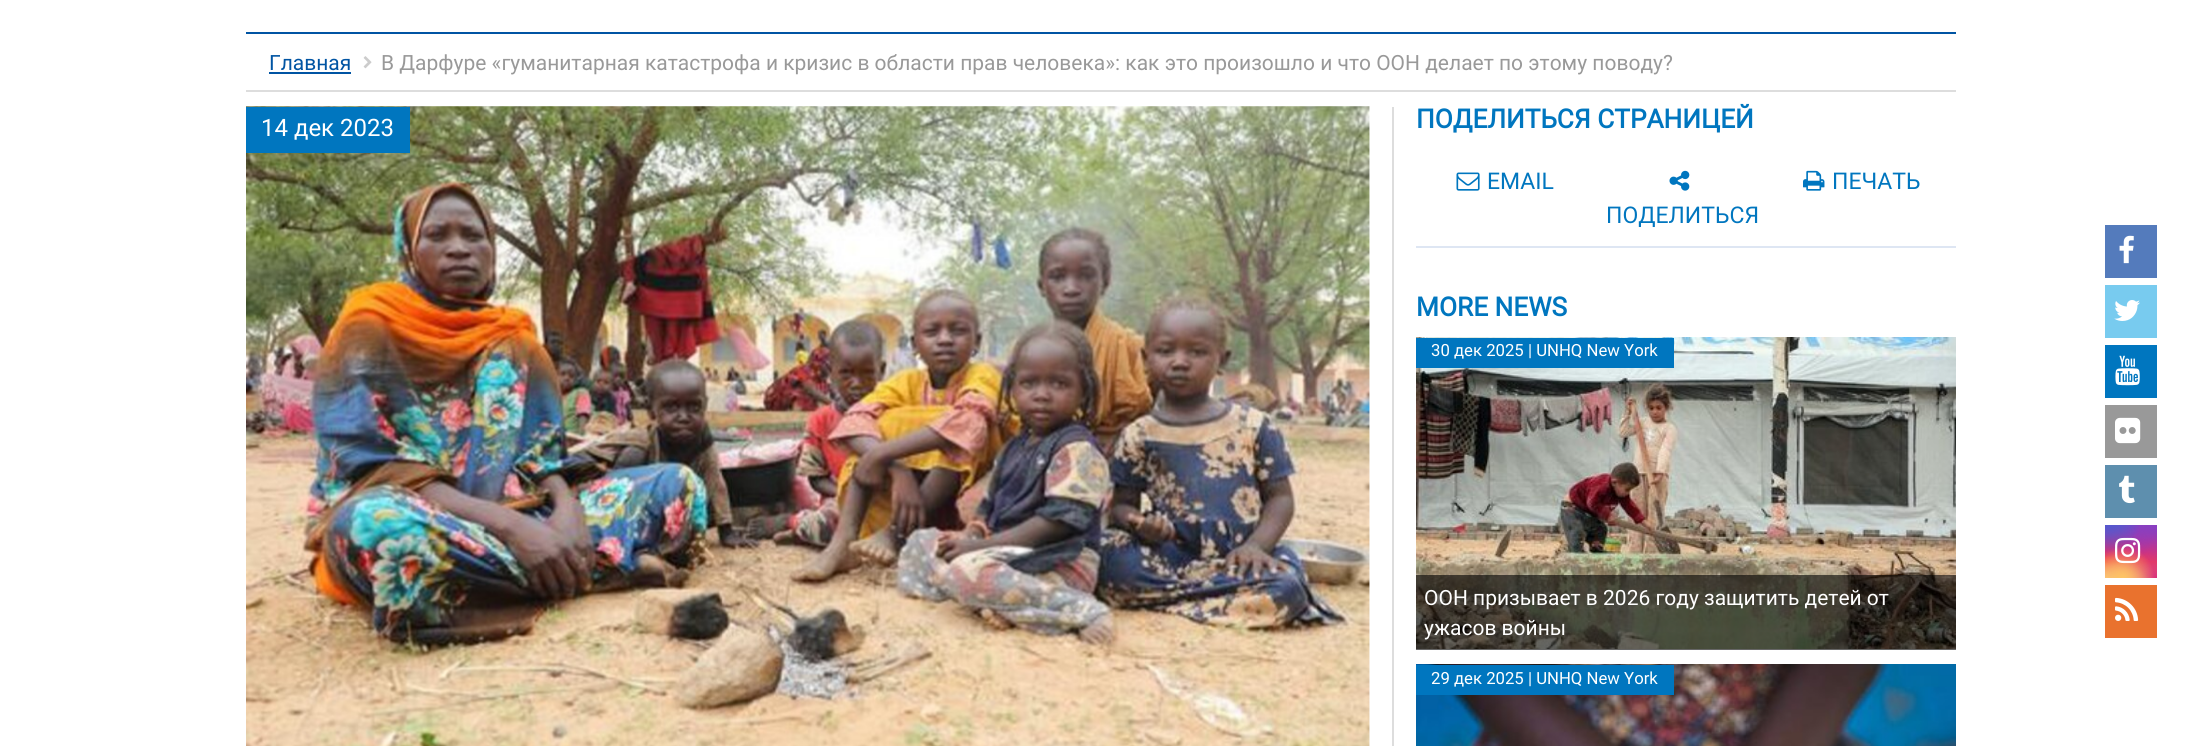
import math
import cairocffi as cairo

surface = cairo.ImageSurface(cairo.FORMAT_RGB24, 2202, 746)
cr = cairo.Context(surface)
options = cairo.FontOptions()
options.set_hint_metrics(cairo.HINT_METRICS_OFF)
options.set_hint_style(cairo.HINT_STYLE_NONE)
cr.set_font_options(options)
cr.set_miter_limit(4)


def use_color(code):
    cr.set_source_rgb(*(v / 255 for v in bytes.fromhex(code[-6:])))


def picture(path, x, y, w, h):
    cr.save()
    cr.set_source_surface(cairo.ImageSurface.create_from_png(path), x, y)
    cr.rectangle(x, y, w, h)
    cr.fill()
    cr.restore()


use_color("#ffffff")
cr.paint()
use_color("#0054a3")
cr.rectangle(246, 32, 1710, 2)
cr.fill()
use_color("#dddddd")
cr.rectangle(246, 90, 1710, 2)
cr.fill()
cr.select_font_face("Roboto")
cr.set_font_size(21)
use_color("#0054a3")
cr.move_to(269, 70)
cr.show_text("Главная")
cr.rectangle(269, 72, 82, 2)
cr.fill()
picture("img1.png", 363, 56, 9, 13)
use_color("#999999")
cr.move_to(381, 70)
cr.show_text("В Дарфуре «гуманитарная катастрофа и кризис в области прав человека»: как это произошло и что ООН делает по этому поводу?")
use_color("#dddddd")
cr.rectangle(1392, 107, 2, 639)
cr.fill()
picture("img2.png", 246, 106, 1124, 640)
use_color("#0076bf")
cr.rectangle(246, 107, 164, 46)
cr.fill()
cr.set_font_size(24)
use_color("#ffffff")
cr.move_to(261, 136)
cr.show_text("14 дек 2023")
cr.select_font_face("Roboto", cairo.FONT_SLANT_NORMAL, cairo.FONT_WEIGHT_BOLD)
cr.set_font_size(26.25)
use_color("#0076bf")
cr.move_to(1416, 128)
cr.show_text("ПОДЕЛИТЬСЯ СТРАНИЦЕЙ")
use_color("#dee6f3")
cr.rectangle(1416, 246, 540, 2)
cr.fill()
picture("img3.png", 1456, 172, 24, 19)
cr.select_font_face("Roboto")
cr.set_font_size(23)
use_color("#0076bf")
cr.move_to(1487, 189)
cr.show_text("EMAIL")
picture("img4.png", 1803, 170, 22, 21)
cr.move_to(1832, 189)
cr.show_text("ПЕЧАТЬ")
picture("img5.png", 1669, 170, 21, 21)
cr.move_to(1606, 223)
cr.show_text("ПОДЕЛИТЬСЯ")
cr.select_font_face("Roboto", cairo.FONT_SLANT_NORMAL, cairo.FONT_WEIGHT_BOLD)
cr.set_font_size(26.25)
cr.move_to(1416, 316)
cr.show_text("MORE NEWS")
picture("img6.png", 1416, 337, 540, 312)
cr.rectangle(1416, 338, 258, 30)
cr.fill()
cr.select_font_face("Roboto")
cr.set_font_size(16.75)
use_color("#ffffff")
cr.move_to(1431, 356)
cr.show_text("30 дек 2025 | UNHQ New York")
cr.set_source_rgba(0, 0, 0, 0.6)
cr.rectangle(1416, 575, 540, 75)
cr.fill()
cr.set_font_size(21)
use_color("#ffffff")
cr.move_to(1424, 605)
cr.show_text("ООН призывает в 2026 году защитить детей от")
cr.move_to(1424, 635)
cr.show_text("ужасов войны")
picture("img7.png", 1416, 664, 540, 82)
use_color("#0076bf")
cr.rectangle(1416, 665, 258, 30)
cr.fill()
cr.set_font_size(16.75)
use_color("#ffffff")
cr.move_to(1431, 684)
cr.show_text("29 дек 2025 | UNHQ New York")
use_color("#547bbc")
cr.rectangle(2105, 225, 52, 53)
cr.fill()
picture("img8.png", 2119, 235, 15, 29)
use_color("#78cbef")
cr.rectangle(2105, 285, 52, 53)
cr.fill()
picture("img9.png", 2114, 300, 26, 21)
use_color("#0076bf")
cr.rectangle(2105, 345, 52, 53)
cr.fill()
picture("img10.png", 2115, 355, 25, 31)
use_color("#999999")
cr.rectangle(2105, 405, 52, 53)
cr.fill()
picture("img11.png", 2115, 417, 26, 27)
use_color("#5e8fae")
cr.rectangle(2105, 465, 52, 53)
cr.fill()
picture("img12.png", 2119, 475, 16, 29)
gradient = cairo.LinearGradient(2131, 525, 2131, 578)
gradient.add_color_stop_rgba(0, 0.396, 0.349, 0.792, 1)
gradient.add_color_stop_rgba(0.3, 0.737, 0.192, 0.561, 1)
gradient.add_color_stop_rgba(0.5, 0.894, 0.18, 0.4, 1)
gradient.add_color_stop_rgba(0.7, 0.98, 0.325, 0.196, 1)
gradient.add_color_stop_rgba(1, 1, 0.863, 0.502, 1)
cr.set_source(gradient)
cr.rectangle(2105, 525, 52, 53)
cr.fill()
gradient = cairo.RadialGradient(2157, 578, 0, 2157, 578, 74)
gradient.add_color_stop_rgba(0, 0.851, 0.192, 0.478, 1)
gradient.add_color_stop_rgba(1, 0.851, 0.192, 0.478, 0)
cr.set_source(gradient)
cr.rectangle(2105, 525, 52, 53)
cr.fill()
gradient = cairo.RadialGradient(0, 0, 0, 0, 0, 1)
gradient.set_matrix(cairo.Matrix(1 / 45, 0, 0, 1 / 89, -1 * 2136 / 45, -1 * 515 / 89))
gradient.add_color_stop_rgba(0, 0.537, 0.239, 0.761, 1)
gradient.add_color_stop_rgba(0.5, 0.537, 0.239, 0.761, 0)
cr.set_source(gradient)
cr.rectangle(2117, 525, 39, 33)
cr.fill()
gradient = cairo.RadialGradient(2157, 525, 0, 2157, 525, 74)
gradient.add_color_stop_rgba(0, 0.537, 0.239, 0.761, 1)
gradient.add_color_stop_rgba(0.5, 0.537, 0.239, 0.761, 0)
cr.set_source(gradient)
cr.rectangle(2124, 525, 33, 36)
cr.fill()
gradient = cairo.RadialGradient(0, 0, 0, 0, 0, 1)
gradient.set_matrix(cairo.Matrix(1 / 59, 0, 0, 1 / 111, -1 * 2115 / 59, -1 * 499 / 111))
gradient.add_color_stop_rgba(0, 0.322, 0.345, 0.812, 1)
gradient.add_color_stop_rgba(0.5, 0.322, 0.345, 0.812, 0)
cr.set_source(gradient)
cr.rectangle(2105, 525, 35, 28)
cr.fill()
gradient = cairo.RadialGradient(0, 0, 0, 0, 0, 1)
gradient.set_matrix(cairo.Matrix(1 / 74, 0, 0, 1 / 93, -1 * 2105 / 74, -1 * 512 / 93))
gradient.add_color_stop_rgba(0, 0.322, 0.345, 0.812, 1)
gradient.add_color_stop_rgba(0.5, 0.322, 0.345, 0.812, 0)
cr.set_source(gradient)
cr.rectangle(2105, 525, 34, 32)
cr.fill()
gradient = cairo.RadialGradient(2110, 599, 0, 2110, 599, 87)
gradient.add_color_stop_rgba(0, 0.996, 0.855, 0.494, 1)
gradient.add_color_stop_rgba(0.5, 0.996, 0.855, 0.494, 0)
cr.set_source(gradient)
cr.rectangle(2105, 556, 42, 22)
cr.fill()
gradient = cairo.RadialGradient(2123, 578, 0, 2123, 578, 63)
gradient.add_color_stop_rgba(0, 0.996, 0.773, 0.392, 1)
gradient.add_color_stop_rgba(0.5, 0.996, 0.773, 0.392, 0)
cr.set_source(gradient)
cr.rectangle(2105, 547, 49, 31)
cr.fill()
picture("img13.png", 2115, 537, 26, 27)
use_color("#e9722e")
cr.rectangle(2105, 585, 52, 53)
cr.fill()
picture("img14.png", 2115, 597, 24, 24)
surface.write_to_png("result.png")
